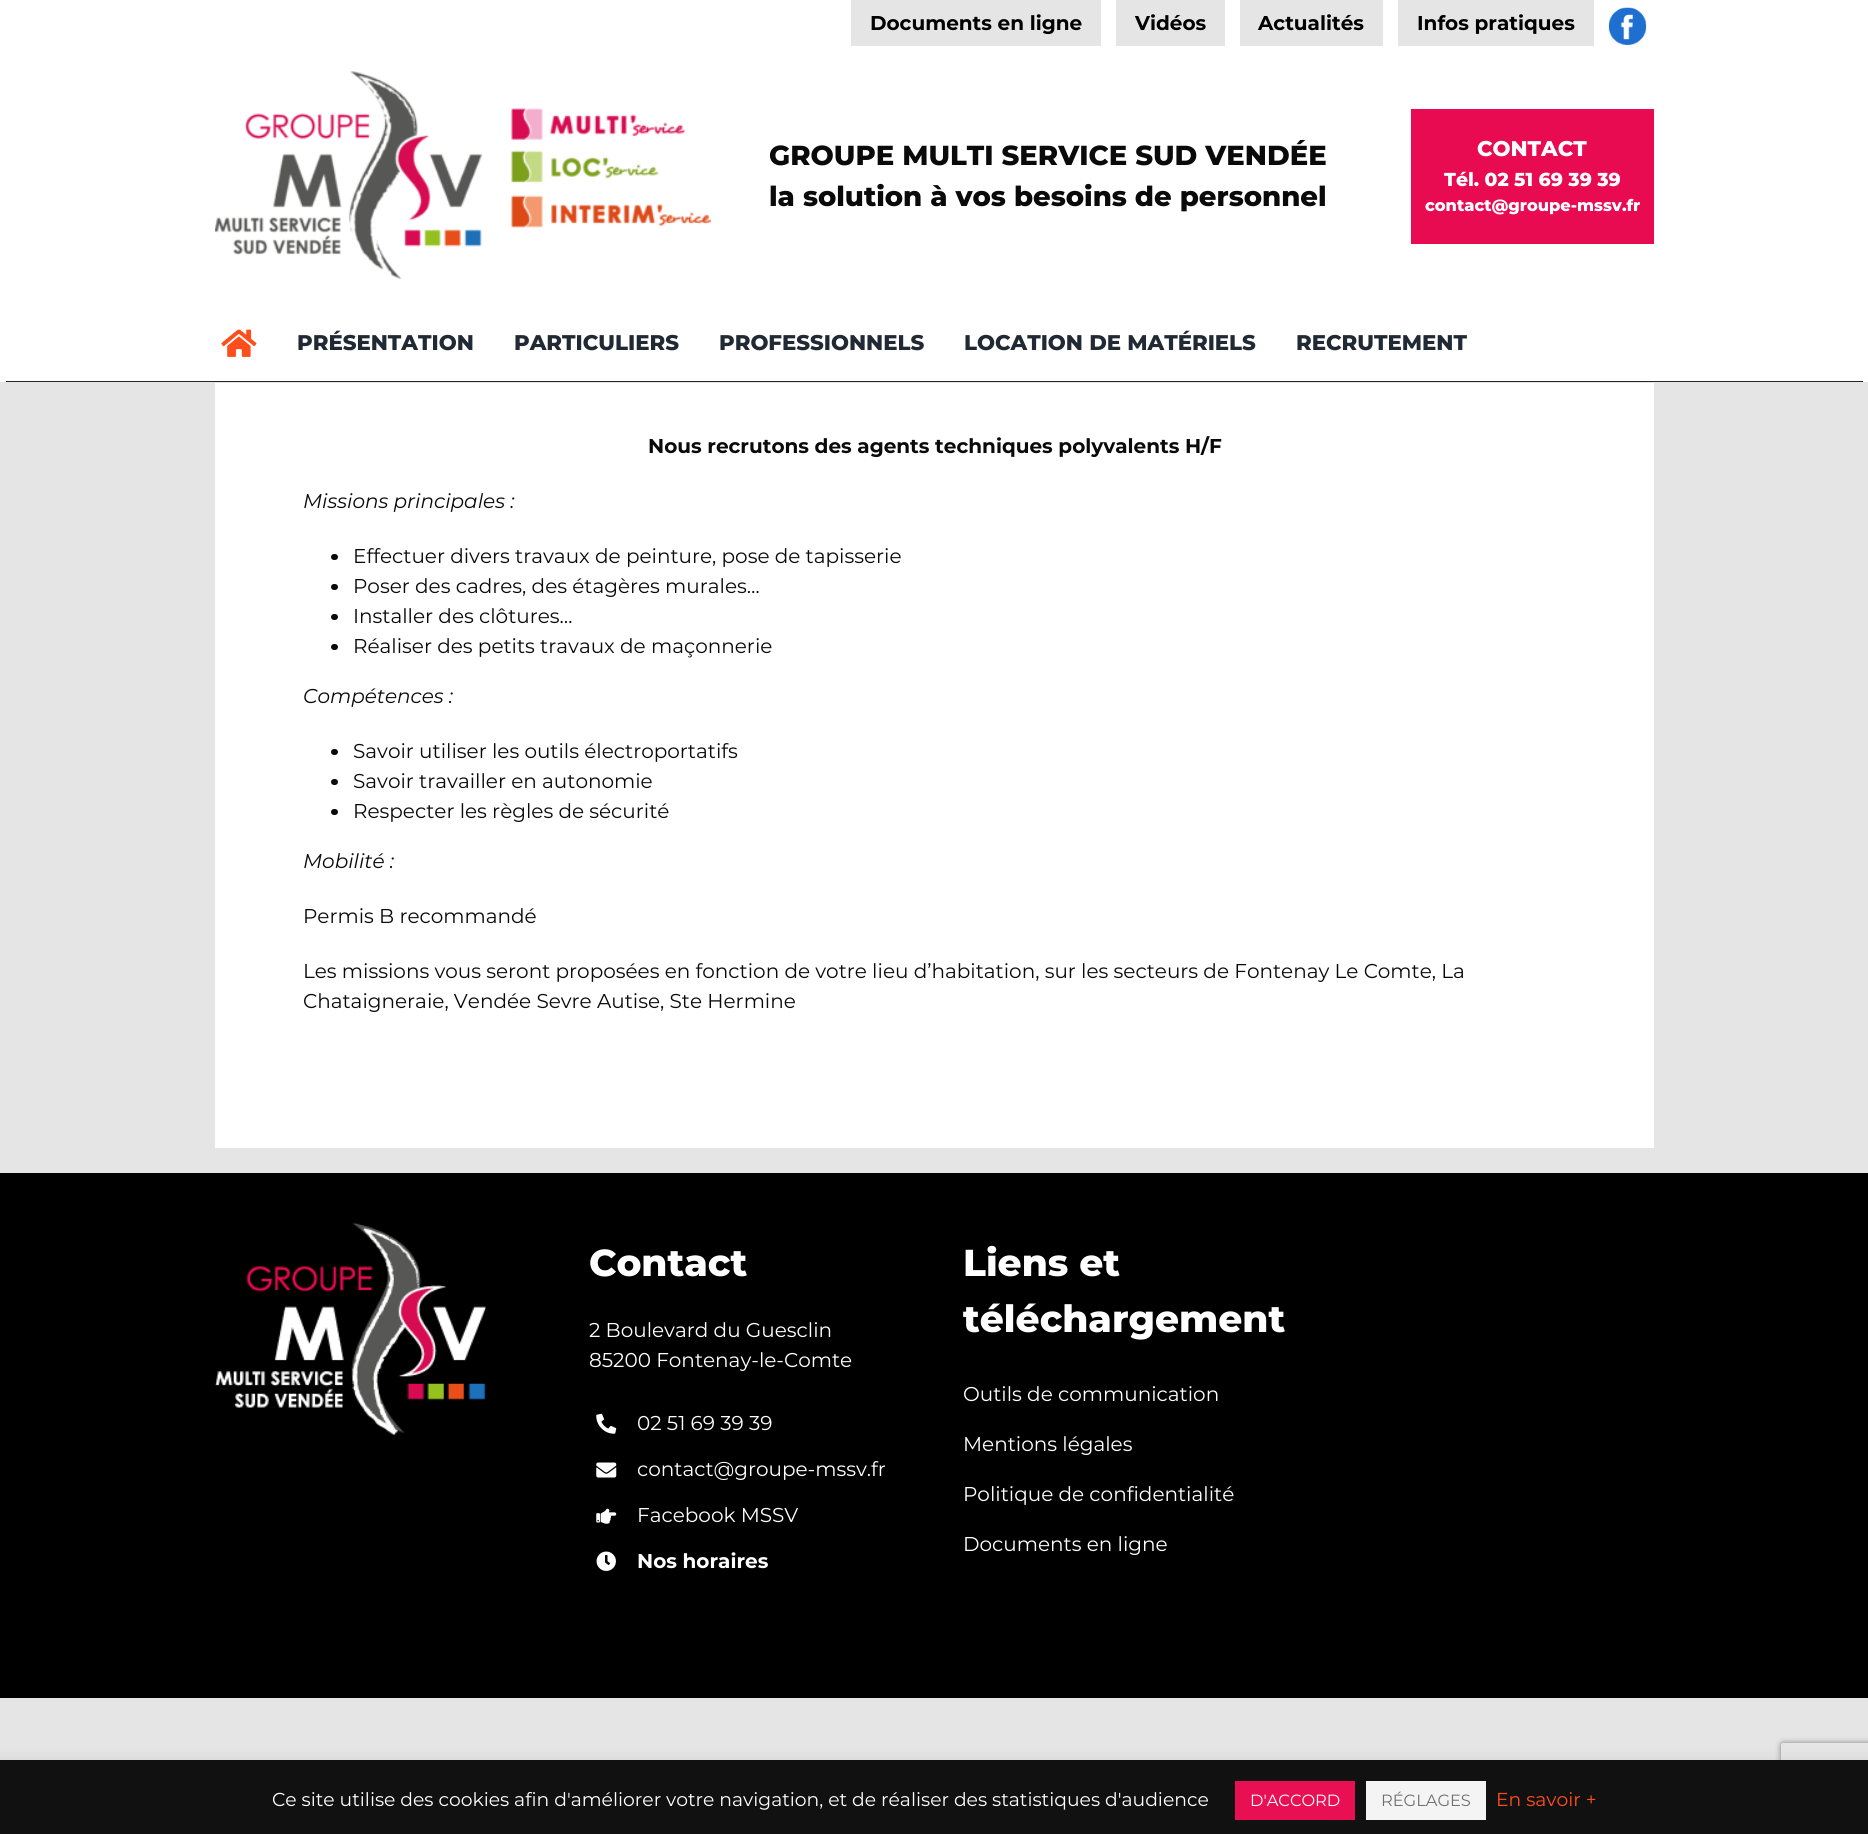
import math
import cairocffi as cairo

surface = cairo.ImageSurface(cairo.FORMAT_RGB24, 1868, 1834)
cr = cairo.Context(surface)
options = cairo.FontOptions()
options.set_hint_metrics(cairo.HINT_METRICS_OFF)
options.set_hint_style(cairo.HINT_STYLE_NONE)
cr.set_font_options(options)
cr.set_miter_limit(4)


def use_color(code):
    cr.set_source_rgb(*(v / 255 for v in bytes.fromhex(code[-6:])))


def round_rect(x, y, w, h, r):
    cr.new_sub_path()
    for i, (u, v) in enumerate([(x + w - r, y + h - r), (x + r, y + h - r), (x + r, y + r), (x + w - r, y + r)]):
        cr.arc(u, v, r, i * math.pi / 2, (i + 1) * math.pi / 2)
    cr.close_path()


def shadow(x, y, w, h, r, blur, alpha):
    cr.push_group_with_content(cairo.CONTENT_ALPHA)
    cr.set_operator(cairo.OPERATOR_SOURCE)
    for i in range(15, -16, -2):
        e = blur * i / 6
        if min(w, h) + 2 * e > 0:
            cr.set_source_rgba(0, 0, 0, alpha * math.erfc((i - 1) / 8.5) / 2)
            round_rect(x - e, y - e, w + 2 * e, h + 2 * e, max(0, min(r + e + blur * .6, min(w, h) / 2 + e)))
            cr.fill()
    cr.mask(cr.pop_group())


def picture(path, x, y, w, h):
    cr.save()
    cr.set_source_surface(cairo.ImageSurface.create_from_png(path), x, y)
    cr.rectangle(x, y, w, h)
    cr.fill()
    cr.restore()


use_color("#e5e5e5")
cr.paint()
use_color("#ffffff")
cr.rectangle(0, 0, 1868, 306)
cr.fill()
use_color("#e5e5e5")
cr.rectangle(851, 0, 250, 46)
cr.fill()
cr.select_font_face("Montserrat", cairo.FONT_SLANT_NORMAL, cairo.FONT_WEIGHT_BOLD)
cr.set_font_size(20)
use_color("#000000")
cr.move_to(870, 30)
cr.show_text("Documents en ligne")
use_color("#e5e5e5")
cr.rectangle(1116, 0, 109, 46)
cr.fill()
use_color("#000000")
cr.move_to(1135, 30)
cr.show_text("Vidéos")
use_color("#e5e5e5")
cr.rectangle(1240, 0, 143, 46)
cr.fill()
use_color("#000000")
cr.move_to(1258, 30)
cr.show_text("Actualités")
use_color("#e5e5e5")
cr.rectangle(1398, 0, 196, 46)
cr.fill()
use_color("#000000")
cr.move_to(1417, 30)
cr.show_text("Infos pratiques")
picture("img1.png", 1608, 7, 39, 38)
picture("img2.png", 215, 71, 497, 209)
cr.select_font_face("Montserrat ExtraBold")
cr.set_font_size(27.5)
use_color("#0a0a0a")
cr.move_to(769, 165)
cr.show_text("GROUPE MULTI SERVICE SUD VENDÉE")
cr.move_to(769, 206)
cr.show_text("la solution à vos besoins de personnel")
use_color("#e80b52")
cr.rectangle(1411, 109, 243, 135)
cr.fill()
cr.set_font_size(21.25)
use_color("#ffffff")
cr.move_to(1477, 156)
cr.show_text("CONTACT")
cr.set_font_size(18.75)
cr.move_to(1444, 186)
cr.show_text("Tél. 02 51 69 39 39")
cr.set_font_size(16.25)
cr.move_to(1425, 211)
cr.show_text("contact@groupe-mssv.fr")
cr.rectangle(0, 306, 1868, 76)
cr.fill()
use_color("#282525")
cr.rectangle(6, 381, 1857, 1)
cr.fill()
picture("img3.png", 221, 329, 36, 28)
cr.set_font_size(21.25)
use_color("#212934")
cr.move_to(297, 350)
cr.show_text("PRÉSENTATION")
cr.move_to(514, 350)
cr.show_text("PARTICULIERS")
cr.move_to(719, 350)
cr.show_text("PROFESSIONNELS")
cr.move_to(964, 350)
cr.show_text("LOCATION DE MATÉRIELS")
cr.move_to(1296, 350)
cr.show_text("RECRUTEMENT")
use_color("#ffffff")
cr.rectangle(215, 383, 1439, 765)
cr.fill()
cr.select_font_face("Montserrat", cairo.FONT_SLANT_NORMAL, cairo.FONT_WEIGHT_BOLD)
cr.set_font_size(20)
use_color("#0a0a0a")
cr.move_to(648, 453)
cr.show_text("Nous recrutons des agents techniques polyvalents H/F")
cr.select_font_face("Montserrat", cairo.FONT_SLANT_ITALIC)
cr.move_to(303, 508)
cr.show_text("Missions principales :")
round_rect(331, 554, 7, 6, 3)
cr.fill()
cr.select_font_face("Montserrat")
cr.move_to(353, 563)
cr.show_text("Effectuer divers travaux de peinture, pose de tapisserie")
round_rect(331, 584, 7, 6, 3)
cr.fill()
cr.move_to(353, 593)
cr.show_text("Poser des cadres, des étagères murales…")
round_rect(331, 614, 7, 6, 3)
cr.fill()
cr.move_to(353, 623)
cr.show_text("Installer des clôtures…")
round_rect(331, 644, 7, 6, 3)
cr.fill()
cr.move_to(353, 653)
cr.show_text("Réaliser des petits travaux de maçonnerie")
cr.select_font_face("Montserrat", cairo.FONT_SLANT_ITALIC)
cr.move_to(303, 703)
cr.show_text("Compétences :")
round_rect(331, 749, 7, 6, 3)
cr.fill()
cr.select_font_face("Montserrat")
cr.move_to(353, 758)
cr.show_text("Savoir utiliser les outils électroportatifs")
round_rect(331, 779, 7, 6, 3)
cr.fill()
cr.move_to(353, 788)
cr.show_text("Savoir travailler en autonomie")
round_rect(331, 809, 7, 6, 3)
cr.fill()
cr.move_to(353, 818)
cr.show_text("Respecter les règles de sécurité")
cr.select_font_face("Montserrat", cairo.FONT_SLANT_ITALIC)
cr.move_to(303, 868)
cr.show_text("Mobilité :")
cr.select_font_face("Montserrat")
cr.move_to(303, 923)
cr.show_text("Permis B recommandé")
cr.move_to(303, 978)
cr.show_text("Les missions vous seront proposées en fonction de votre lieu d’habitation, sur les secteurs de Fontenay Le Comte, La")
cr.move_to(303, 1008)
cr.show_text("Chataigneraie, Vendée Sevre Autise, Ste Hermine")
use_color("#000000")
cr.rectangle(0, 1173, 1868, 525)
cr.fill()
picture("img4.png", 215, 1222, 271, 213)
cr.select_font_face("Montserrat ExtraBold")
cr.set_font_size(37.5)
use_color("#ffffff")
cr.move_to(589, 1276)
cr.show_text("Contact")
cr.select_font_face("Montserrat")
cr.set_font_size(20)
cr.move_to(589, 1337)
cr.show_text("2 Boulevard du Guesclin")
cr.move_to(589, 1367)
cr.show_text("85200 Fontenay-le-Comte")
picture("img5.png", 596, 1413, 21, 21)
cr.move_to(637, 1430)
cr.show_text("02 51 69 39 39")
picture("img6.png", 596, 1462, 21, 16)
cr.move_to(637, 1476)
cr.show_text("contact@groupe-mssv.fr")
picture("img7.png", 596, 1508, 21, 16)
cr.move_to(637, 1522)
cr.show_text("Facebook MSSV")
picture("img8.png", 596, 1551, 20, 20)
cr.select_font_face("Montserrat", cairo.FONT_SLANT_NORMAL, cairo.FONT_WEIGHT_BOLD)
cr.move_to(637, 1568)
cr.show_text("Nos horaires")
cr.select_font_face("Montserrat ExtraBold")
cr.set_font_size(37.5)
cr.move_to(963, 1276)
cr.show_text("Liens et")
cr.move_to(963, 1332)
cr.show_text("téléchargement")
cr.select_font_face("Montserrat")
cr.set_font_size(20)
cr.move_to(963, 1401)
cr.show_text("Outils de communication")
cr.move_to(963, 1451)
cr.show_text("Mentions légales")
cr.move_to(963, 1501)
cr.show_text("Politique de confidentialité")
cr.move_to(963, 1551)
cr.show_text("Documents en ligne")
use_color("#acabab")
shadow(0, 1759, 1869, 75, 0, 6, 0.3)
cr.save()
cr.set_fill_rule(cairo.FILL_RULE_EVEN_ODD)
cr.new_path()
cr.move_to(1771, 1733)
cr.line_to(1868, 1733)
cr.line_to(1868, 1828)
cr.line_to(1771, 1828)
cr.close_path()
cr.move_to(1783.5, 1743)
cr.line_to(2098.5, 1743)
cr.curve_to(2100, 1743, 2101, 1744, 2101, 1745.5)
cr.line_to(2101, 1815.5)
cr.curve_to(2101, 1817, 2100, 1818, 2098.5, 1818)
cr.line_to(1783.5, 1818)
cr.curve_to(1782, 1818, 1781, 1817, 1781, 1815.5)
cr.line_to(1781, 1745.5)
cr.curve_to(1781, 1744, 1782, 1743, 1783.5, 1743)
cr.close_path()
cr.clip()
use_color("#808080")
shadow(1781, 1743, 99, 75, 2.5, 3, 1)
cr.restore()
use_color("#111111")
cr.rectangle(0, 1760, 1868, 74)
cr.fill()
cr.set_font_size(18.75)
use_color("#ffffff")
cr.move_to(272, 1806)
cr.show_text("Ce site utilise des cookies afin d'améliorer votre navigation, et de réaliser des statistiques d'audience")
use_color("#e81052")
cr.rectangle(1235, 1781, 120, 39)
cr.fill()
cr.set_font_size(16.25)
use_color("#ffffff")
cr.move_to(1250, 1806)
cr.show_text("D'ACCORD")
use_color("#f4f4f4")
cr.rectangle(1366, 1781, 120, 39)
cr.fill()
use_color("#707070")
cr.move_to(1381, 1806)
cr.show_text("RÉGLAGES")
cr.set_font_size(18.75)
use_color("#ff4e1b")
cr.move_to(1496, 1806)
cr.show_text("En savoir +")
surface.write_to_png("result.png")
